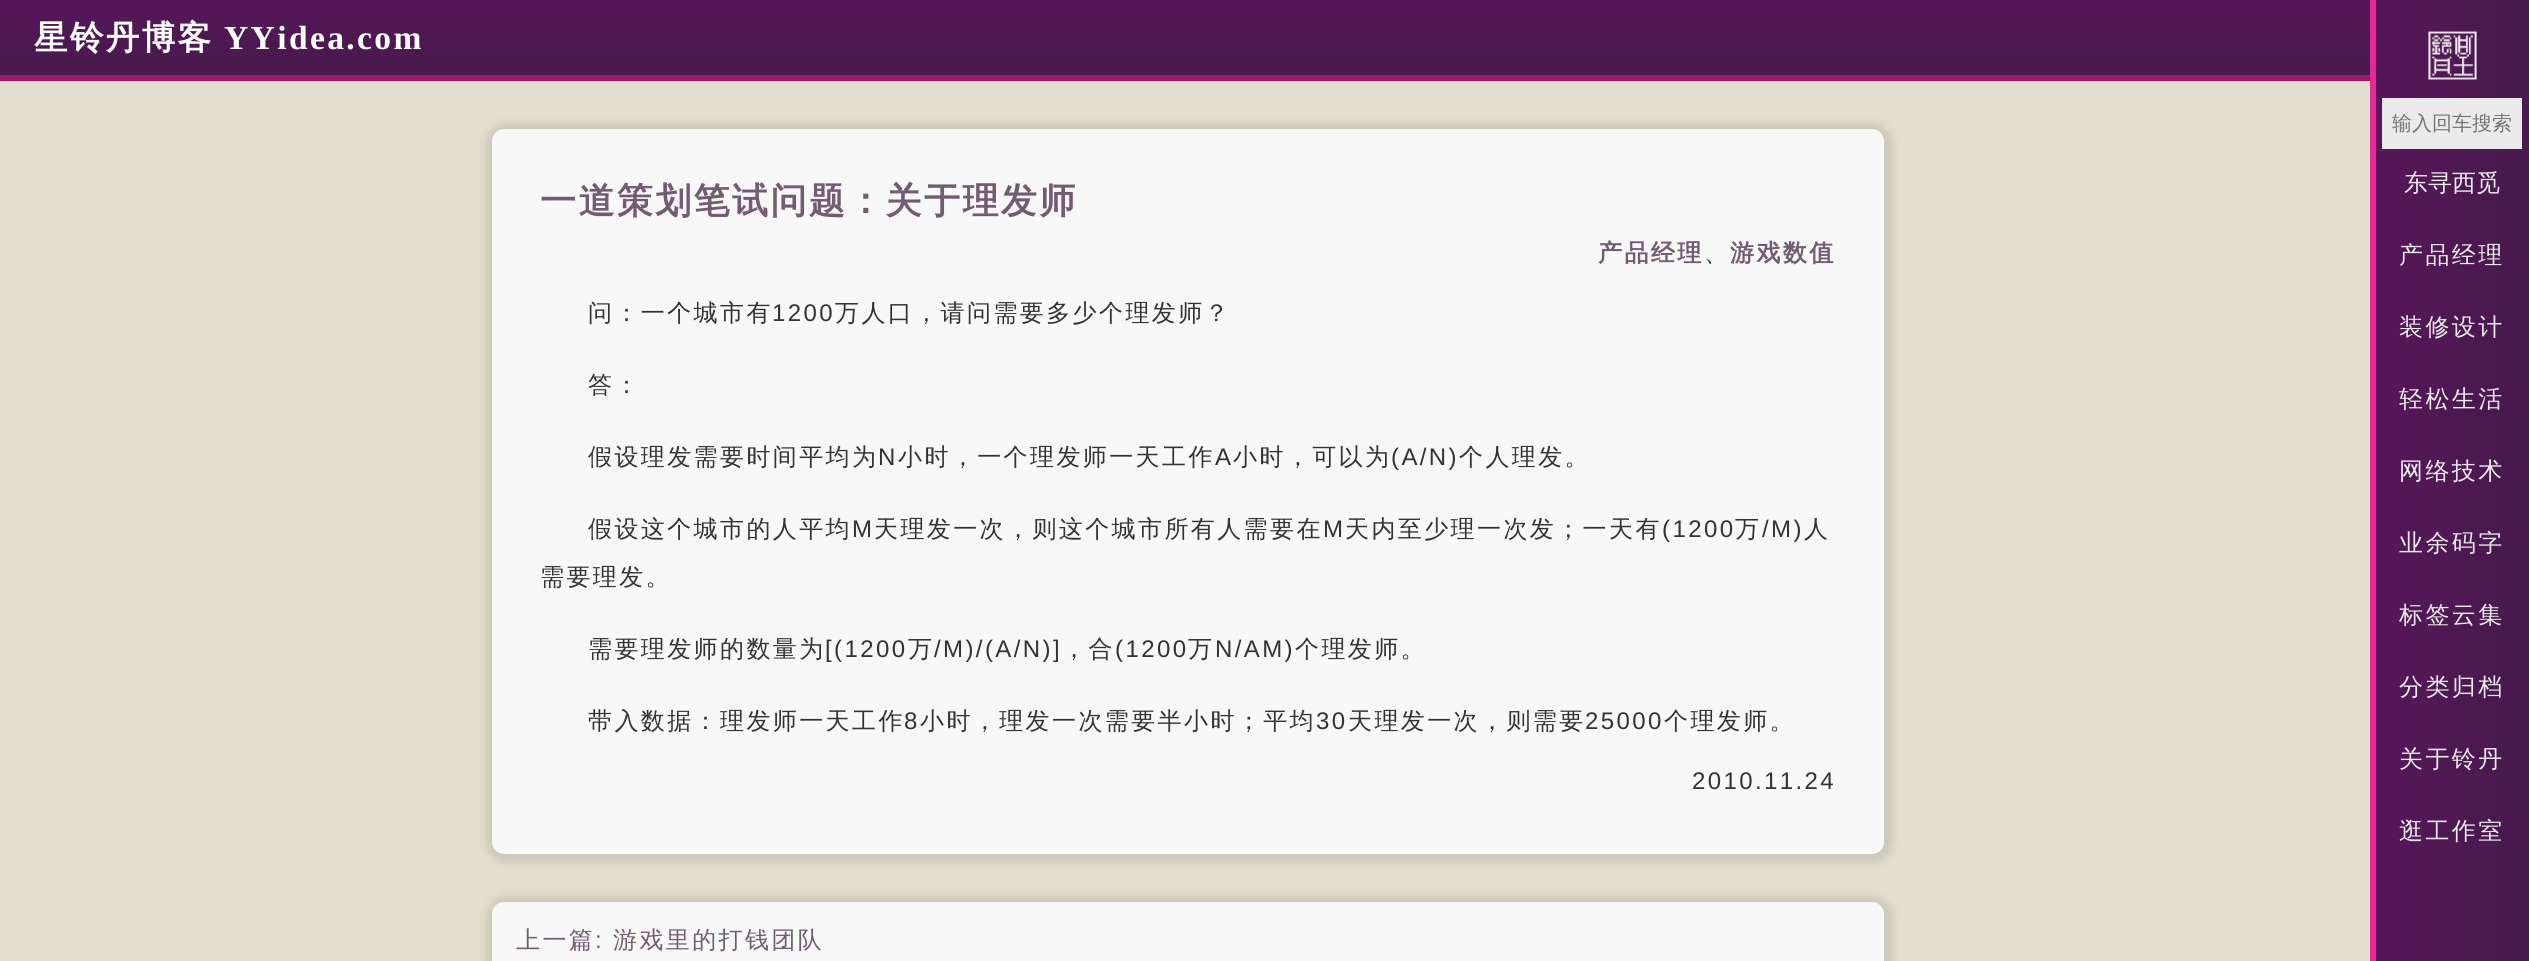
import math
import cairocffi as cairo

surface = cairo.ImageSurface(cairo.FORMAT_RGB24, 2529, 961)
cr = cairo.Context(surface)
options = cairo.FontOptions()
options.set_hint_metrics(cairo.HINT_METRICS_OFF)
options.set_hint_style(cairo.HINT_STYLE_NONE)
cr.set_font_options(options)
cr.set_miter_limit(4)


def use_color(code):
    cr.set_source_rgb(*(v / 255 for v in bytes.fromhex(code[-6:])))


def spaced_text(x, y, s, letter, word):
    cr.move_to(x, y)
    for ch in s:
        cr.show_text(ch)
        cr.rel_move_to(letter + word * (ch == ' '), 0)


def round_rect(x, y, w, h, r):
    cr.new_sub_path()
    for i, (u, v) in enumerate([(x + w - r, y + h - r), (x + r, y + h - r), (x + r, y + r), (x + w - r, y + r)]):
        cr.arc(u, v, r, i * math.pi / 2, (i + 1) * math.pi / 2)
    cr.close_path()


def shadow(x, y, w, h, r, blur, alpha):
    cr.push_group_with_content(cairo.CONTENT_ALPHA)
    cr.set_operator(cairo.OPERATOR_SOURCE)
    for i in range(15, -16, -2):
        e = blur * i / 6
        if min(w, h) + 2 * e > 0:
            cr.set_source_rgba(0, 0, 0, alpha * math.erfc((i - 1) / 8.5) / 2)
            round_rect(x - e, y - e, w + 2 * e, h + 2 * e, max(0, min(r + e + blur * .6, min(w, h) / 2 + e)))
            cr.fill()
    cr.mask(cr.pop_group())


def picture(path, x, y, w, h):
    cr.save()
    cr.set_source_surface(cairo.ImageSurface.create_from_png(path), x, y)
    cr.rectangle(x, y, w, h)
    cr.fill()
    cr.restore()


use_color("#e3dfcf")
cr.paint()
gradient = cairo.LinearGradient(1265, 0, 1265, 75)
gradient.add_color_stop_rgba(0, 0.337, 0.09, 0.353, 1)
gradient.add_color_stop_rgba(1, 0.278, 0.098, 0.298, 1)
cr.set_source(gradient)
cr.rectangle(0, 0, 2370, 75)
cr.fill()
use_color("#9b1965")
cr.rectangle(0, 75, 2370, 6)
cr.fill()
cr.select_font_face("WenQuanYi Zen Hei", cairo.FONT_SLANT_NORMAL, cairo.FONT_WEIGHT_BOLD)
cr.set_font_size(33.5)
use_color("#ffffff")
spaced_text(34, 49, "星铃丹博客", 2.4, 0)
cr.select_font_face("Liberation Serif", cairo.FONT_SLANT_NORMAL, cairo.FONT_WEIGHT_BOLD)
spaced_text(224, 49, "YYidea.com", 2.4, 0)
gradient = cairo.LinearGradient(2376, 493, 2529, 493)
gradient.add_color_stop_rgba(0, 0.337, 0.09, 0.353, 1)
gradient.add_color_stop_rgba(1, 0.278, 0.098, 0.298, 1)
cr.set_source(gradient)
cr.rectangle(2376, 0, 153, 961)
cr.fill()
use_color("#e82698")
cr.rectangle(2370, 0, 6, 961)
cr.fill()
picture("img1.png", 2428, 31, 49, 49)
use_color("#ebebeb")
cr.rectangle(2383, 99, 138, 49)
cr.fill_preserve()
use_color("#e9e9e9")
cr.stroke()
cr.select_font_face("WenQuanYi Zen Hei Medium")
cr.set_font_size(20)
use_color("#757575")
cr.move_to(2392, 130)
cr.show_text("输入回车搜索")
cr.set_font_size(24)
use_color("#ebebeb")
cr.move_to(2404, 191)
cr.show_text("东寻西觅")
spaced_text(2399, 263, "产品经理", 2.4, 0)
spaced_text(2399, 335, "装修设计", 2.4, 0)
spaced_text(2399, 407, "轻松生活", 2.4, 0)
spaced_text(2399, 479, "网络技术", 2.4, 0)
spaced_text(2399, 551, "业余码字", 2.4, 0)
spaced_text(2399, 623, "标签云集", 2.4, 0)
spaced_text(2399, 695, "分类归档", 2.4, 0)
spaced_text(2399, 767, "关于铃丹", 2.4, 0)
spaced_text(2399, 839, "逛工作室", 2.4, 0)
use_color("#000000")
shadow(486, 123, 1407, 740, 20, 4, 0.1)
use_color("#f8f8f8")
round_rect(492, 129, 1392, 725, 12)
cr.fill()
cr.select_font_face("WenQuanYi Zen Hei", cairo.FONT_SLANT_NORMAL, cairo.FONT_WEIGHT_BOLD)
cr.set_font_size(36)
use_color("#735c71")
spaced_text(540, 213, "一道策划笔试问题：关于理发师", 2.4, 0)
cr.set_font_size(24)
spaced_text(1598, 261, "产品经理", 2.4, 0)
cr.select_font_face("WenQuanYi Zen Hei Medium")
use_color("#333333")
spaced_text(1704, 261, "、", 2.4, 0)
cr.select_font_face("WenQuanYi Zen Hei", cairo.FONT_SLANT_NORMAL, cairo.FONT_WEIGHT_BOLD)
use_color("#735c71")
spaced_text(1730, 261, "游戏数值", 2.4, 0)
cr.select_font_face("WenQuanYi Zen Hei Medium")
use_color("#333333")
spaced_text(588, 321, "问：一个城市有", 2.4, 0)
cr.select_font_face("Liberation Sans")
spaced_text(772, 321, "1200", 2.4, 0)
cr.select_font_face("WenQuanYi Zen Hei Medium")
spaced_text(835, 321, "万人口，请问需要多少个理发师？", 2.4, 0)
spaced_text(588, 393, "答：", 2.4, 0)
spaced_text(588, 465, "假设理发需要时间平均为", 2.4, 0)
cr.select_font_face("Liberation Sans")
spaced_text(878, 465, "N", 2.4, 0)
cr.select_font_face("WenQuanYi Zen Hei Medium")
spaced_text(898, 465, "小时，一个理发师一天工作", 2.4, 0)
cr.select_font_face("Liberation Sans")
spaced_text(1215, 465, "A", 2.4, 0)
cr.select_font_face("WenQuanYi Zen Hei Medium")
spaced_text(1233, 465, "小时，可以为", 2.4, 0)
cr.select_font_face("Liberation Sans")
spaced_text(1391, 465, "(A/N)", 2.4, 0)
cr.select_font_face("WenQuanYi Zen Hei Medium")
spaced_text(1459, 465, "个人理发。", 2.4, 0)
spaced_text(588, 537, "假设这个城市的人平均", 2.4, 0)
cr.select_font_face("Liberation Sans")
spaced_text(852, 537, "M", 2.4, 0)
cr.select_font_face("WenQuanYi Zen Hei Medium")
spaced_text(874, 537, "天理发一次，则这个城市所有人需要在", 2.4, 0)
cr.select_font_face("Liberation Sans")
spaced_text(1323, 537, "M", 2.4, 0)
cr.select_font_face("WenQuanYi Zen Hei Medium")
spaced_text(1345, 537, "天内至少理一次发；一天有", 2.4, 0)
cr.select_font_face("Liberation Sans")
spaced_text(1662, 537, "(1200", 2.4, 0)
cr.select_font_face("WenQuanYi Zen Hei Medium")
spaced_text(1735, 537, "万", 2.4, 0)
cr.select_font_face("Liberation Sans")
spaced_text(1762, 537, "/M)", 2.4, 0)
cr.select_font_face("WenQuanYi Zen Hei Medium")
spaced_text(1804, 537, "人", 2.4, 0)
spaced_text(540, 585, "需要理发。", 2.4, 0)
spaced_text(588, 657, "需要理发师的数量为", 2.4, 0)
cr.select_font_face("Liberation Sans")
spaced_text(825, 657, "[(1200", 2.4, 0)
cr.select_font_face("WenQuanYi Zen Hei Medium")
spaced_text(908, 657, "万", 2.4, 0)
cr.select_font_face("Liberation Sans")
spaced_text(934, 657, "/M)/(A/N)]", 2.4, 0)
cr.select_font_face("WenQuanYi Zen Hei Medium")
spaced_text(1062, 657, "，合", 2.4, 0)
cr.select_font_face("Liberation Sans")
spaced_text(1115, 657, "(1200", 2.4, 0)
cr.select_font_face("WenQuanYi Zen Hei Medium")
spaced_text(1188, 657, "万", 2.4, 0)
cr.select_font_face("Liberation Sans")
spaced_text(1215, 657, "N/AM)", 2.4, 0)
cr.select_font_face("WenQuanYi Zen Hei Medium")
spaced_text(1295, 657, "个理发师。", 2.4, 0)
spaced_text(588, 729, "带入数据：理发师一天工作", 2.4, 0)
cr.select_font_face("Liberation Sans")
spaced_text(904, 729, "8", 2.4, 0)
cr.select_font_face("WenQuanYi Zen Hei Medium")
spaced_text(920, 729, "小时，理发一次需要半小时；平均", 2.4, 0)
cr.select_font_face("Liberation Sans")
spaced_text(1316, 729, "30", 2.4, 0)
cr.select_font_face("WenQuanYi Zen Hei Medium")
spaced_text(1348, 729, "天理发一次，则需要", 2.4, 0)
cr.select_font_face("Liberation Sans")
spaced_text(1585, 729, "25000", 2.4, 0)
cr.select_font_face("WenQuanYi Zen Hei Medium")
spaced_text(1664, 729, "个理发师。", 2.4, 0)
cr.select_font_face("Liberation Sans")
spaced_text(1692, 789, "2010.11.24", 2.4, 0)
use_color("#000000")
shadow(486, 896, 1407, 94, 20, 4, 0.1)
use_color("#f8f8f8")
round_rect(492, 902, 1392, 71, 12)
cr.fill()
cr.select_font_face("WenQuanYi Zen Hei Medium")
use_color("#735c71")
spaced_text(516, 948, "上一篇", 2.4, 0)
cr.select_font_face("Liberation Sans")
spaced_text(595, 948, ":", 2.4, 0)
cr.select_font_face("WenQuanYi Zen Hei Medium")
spaced_text(613, 948, "游戏里的打钱团队", 2.4, 0)
surface.write_to_png("result.png")
